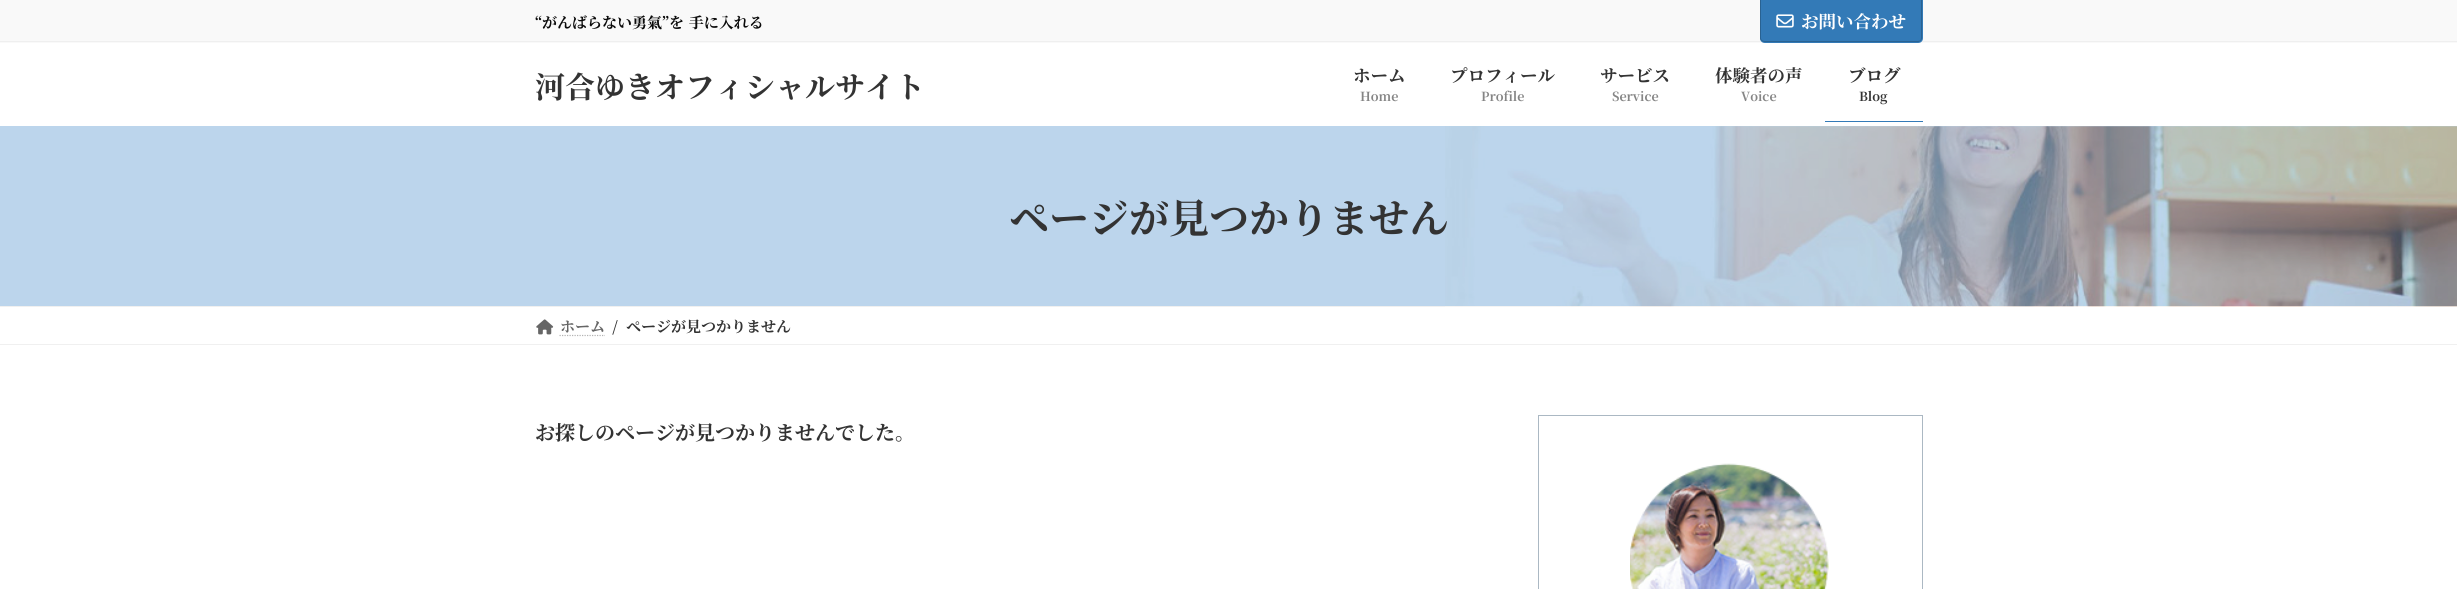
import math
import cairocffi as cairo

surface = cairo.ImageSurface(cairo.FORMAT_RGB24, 2457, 589)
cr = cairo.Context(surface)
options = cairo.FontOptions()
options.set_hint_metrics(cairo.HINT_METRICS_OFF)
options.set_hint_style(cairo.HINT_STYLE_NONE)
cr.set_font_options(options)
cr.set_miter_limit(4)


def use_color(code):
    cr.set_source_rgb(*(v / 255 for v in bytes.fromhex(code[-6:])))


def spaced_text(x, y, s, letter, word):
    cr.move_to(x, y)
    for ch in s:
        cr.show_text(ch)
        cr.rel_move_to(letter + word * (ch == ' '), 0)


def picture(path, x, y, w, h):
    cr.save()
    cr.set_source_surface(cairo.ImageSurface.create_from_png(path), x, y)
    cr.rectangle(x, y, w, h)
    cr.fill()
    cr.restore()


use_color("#ffffff")
cr.paint()
use_color("#bcd5ec")
cr.rectangle(0, 126, 2457, 180)
cr.fill()
use_color("#f9f9f9")
cr.rectangle(0, 0, 2457, 43)
cr.fill()
use_color("#efefef")
cr.rectangle(0, 41, 2457, 1)
cr.fill()
cr.select_font_face("Noto Serif JP ExtraLight")
cr.set_font_size(15)
use_color("#0a0a0a")
spaced_text(535, 28, "“がんばらない勇氣”を 手に入れる", 0, 1)
use_color("#337ab7")
cr.new_path()
cr.move_to(1760, 0)
cr.line_to(1923, 0)
cr.line_to(1923, 38)
cr.curve_to(1923, 41, 1921, 43, 1918, 43)
cr.line_to(1765, 43)
cr.curve_to(1762, 43, 1760, 41, 1760, 38)
cr.close_path()
cr.fill()
use_color("#296292")
cr.set_fill_rule(cairo.FILL_RULE_EVEN_ODD)
cr.new_path()
cr.move_to(1760, 0)
cr.line_to(1922, 0)
cr.line_to(1922, 38)
cr.curve_to(1922, 40, 1920, 42, 1918, 42)
cr.line_to(1765, 42)
cr.curve_to(1762, 42, 1760, 40, 1760, 38)
cr.close_path()
cr.move_to(1761, 0)
cr.line_to(1921, 0)
cr.line_to(1921, 38)
cr.curve_to(1921, 40, 1920, 41, 1918, 41)
cr.line_to(1765, 41)
cr.curve_to(1763, 41, 1761, 40, 1761, 38)
cr.close_path()
cr.fill()
picture("img1.png", 1776, 14, 18, 14)
cr.set_font_size(17.5)
use_color("#ffffff")
cr.move_to(1801, 28)
cr.show_text("お問い合わせ")
cr.set_font_size(30)
use_color("#333333")
cr.move_to(535, 98)
cr.show_text("河合ゆきオフィシャルサイト")
cr.set_font_size(17.5)
cr.move_to(1353, 82)
cr.show_text("ホーム")
cr.set_font_size(12.5)
use_color("#858585")
cr.move_to(1360, 101)
cr.show_text("Home")
cr.set_font_size(17.5)
use_color("#333333")
cr.move_to(1450, 82)
cr.show_text("プロフィール")
cr.set_font_size(12.5)
use_color("#858585")
cr.move_to(1481, 101)
cr.show_text("Profile")
cr.set_font_size(17.5)
use_color("#333333")
cr.move_to(1600, 82)
cr.show_text("サービス")
cr.set_font_size(12.5)
use_color("#858585")
cr.move_to(1612, 101)
cr.show_text("Service")
cr.set_font_size(17.5)
use_color("#333333")
cr.move_to(1715, 82)
cr.show_text("体験者の声")
cr.set_font_size(12.5)
use_color("#858585")
cr.move_to(1741, 101)
cr.show_text("Voice")
cr.set_font_size(17.5)
use_color("#333333")
cr.move_to(1848, 82)
cr.show_text("ブログ")
cr.set_font_size(12.5)
cr.move_to(1859, 101)
cr.show_text("Blog")
use_color("#337ab7")
cr.rectangle(1825, 121, 98, 1)
cr.fill()
use_color("#f0f0f0")
cr.rectangle(0, 306, 2457, 1)
cr.fill()
picture("img2.png", 1445, 126, 1012, 181)
cr.set_font_size(40)
use_color("#333333")
cr.move_to(1009, 233)
cr.show_text("ページが見つかりません")
use_color("#f0f0f0")
cr.rectangle(0, 344, 2457, 1)
cr.fill()
picture("img3.png", 536, 319, 18, 16)
cr.set_font_size(15)
use_color("#666666")
cr.move_to(560, 332)
cr.show_text("ホーム")
cr.new_path()
cr.move_to(559.5, 335.5)
cr.line_to(605, 335.5)
use_color("#b3b3b3")
cr.set_line_width(1.2)
cr.set_dash([1.25, 1.25])
cr.stroke()
use_color("#333333")
cr.move_to(612, 332)
cr.show_text("/")
cr.move_to(626, 332)
cr.show_text("ページが見つかりません")
cr.set_font_size(20)
cr.move_to(535, 440)
cr.show_text("お探しのページが見つかりませんでした。")
cr.rectangle(1538.5, 415.5, 384, 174)
use_color("#abb8c3")
cr.set_line_width(1)
cr.set_dash([])
cr.stroke()
picture("img4.png", 1630, 463, 199, 126)
surface.write_to_png("result.png")
